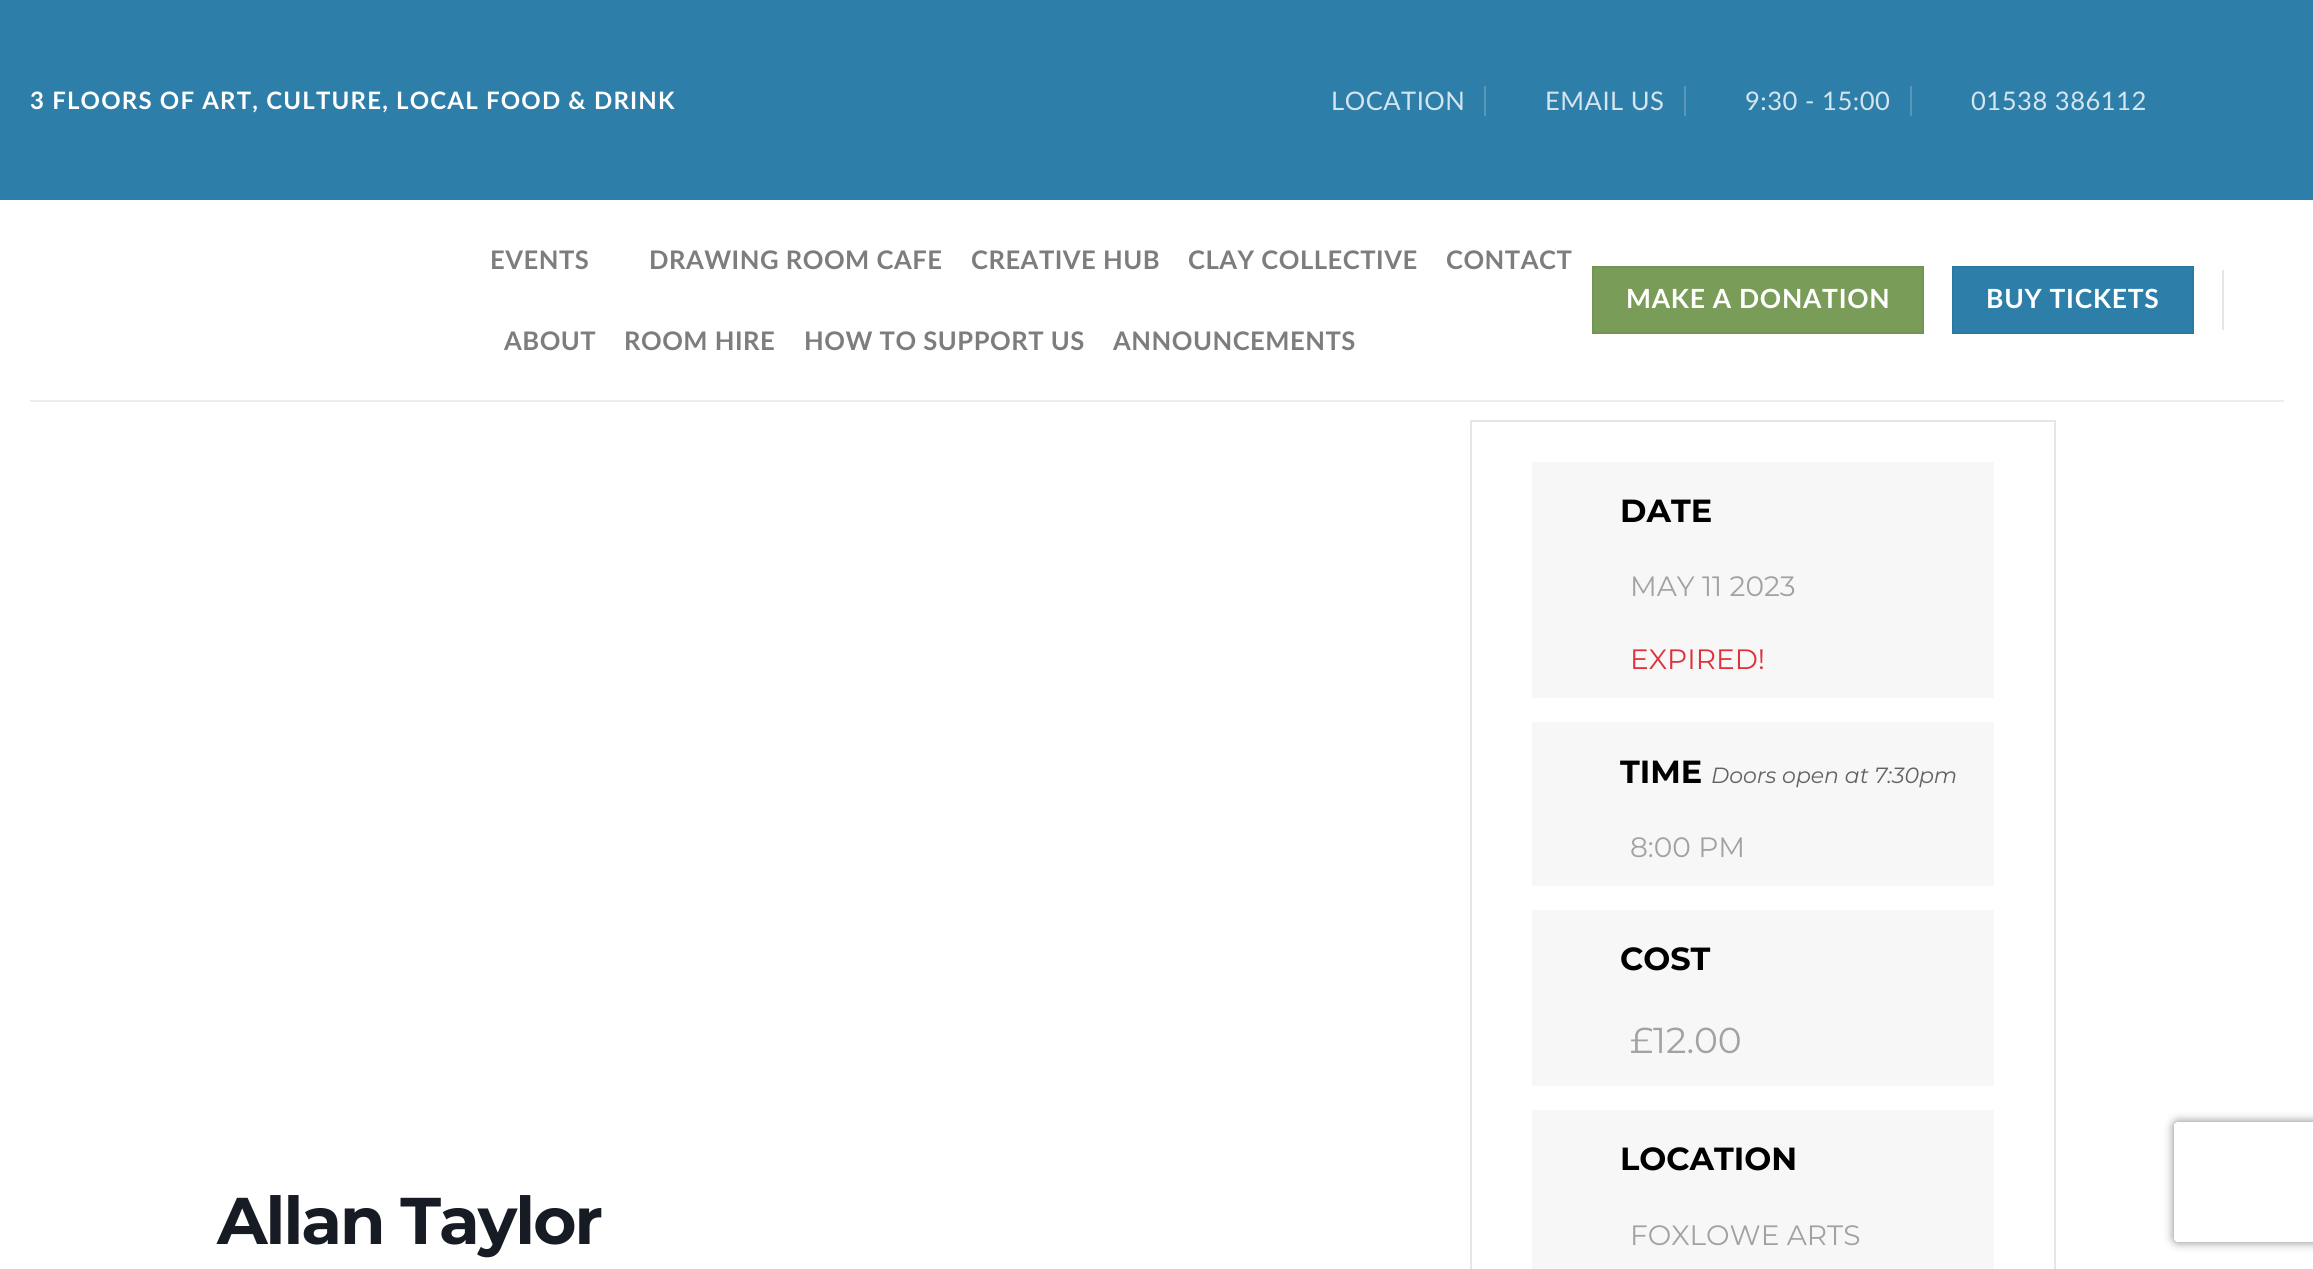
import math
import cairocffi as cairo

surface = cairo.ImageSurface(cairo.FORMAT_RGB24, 2313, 1269)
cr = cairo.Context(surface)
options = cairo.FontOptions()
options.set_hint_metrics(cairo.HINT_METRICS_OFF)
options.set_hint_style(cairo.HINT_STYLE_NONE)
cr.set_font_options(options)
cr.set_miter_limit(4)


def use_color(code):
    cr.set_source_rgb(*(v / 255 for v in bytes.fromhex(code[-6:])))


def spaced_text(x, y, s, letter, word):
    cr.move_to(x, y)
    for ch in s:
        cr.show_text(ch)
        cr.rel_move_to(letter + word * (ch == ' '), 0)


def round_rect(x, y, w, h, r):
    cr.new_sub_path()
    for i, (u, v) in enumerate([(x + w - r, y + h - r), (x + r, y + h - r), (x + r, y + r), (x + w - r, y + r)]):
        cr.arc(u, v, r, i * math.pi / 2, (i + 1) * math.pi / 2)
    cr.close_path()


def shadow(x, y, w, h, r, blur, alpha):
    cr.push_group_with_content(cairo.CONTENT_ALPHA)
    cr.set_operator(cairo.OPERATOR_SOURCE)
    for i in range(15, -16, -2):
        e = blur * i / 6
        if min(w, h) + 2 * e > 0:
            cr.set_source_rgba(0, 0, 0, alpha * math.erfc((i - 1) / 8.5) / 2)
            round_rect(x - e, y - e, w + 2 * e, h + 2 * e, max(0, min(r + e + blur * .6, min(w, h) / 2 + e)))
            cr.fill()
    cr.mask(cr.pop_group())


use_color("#ffffff")
cr.paint()
use_color("#2d7ea9")
cr.rectangle(0, 0, 2313, 200)
cr.fill()
cr.select_font_face("Lato", cairo.FONT_SLANT_NORMAL, cairo.FONT_WEIGHT_BOLD)
cr.set_font_size(24)
use_color("#ffffff")
spaced_text(30, 109, "3 FLOORS OF ART, CULTURE, LOCAL FOOD & DRINK", 1.2, 0)
cr.select_font_face("Lato")
cr.set_font_size(25.6)
use_color("#d5e5ee")
spaced_text(1331, 110, "LOCATION", 0.5, 0)
use_color("#5798ba")
cr.rectangle(1484, 86, 2, 30)
cr.fill()
use_color("#d5e5ee")
spaced_text(1545, 110, "EMAIL US", 0.5, 0)
use_color("#5798ba")
cr.rectangle(1684, 86, 2, 30)
cr.fill()
use_color("#d5e5ee")
spaced_text(1745, 110, "9:30 - 15:00", 0.5, 0)
use_color("#5798ba")
cr.rectangle(1910, 86, 2, 30)
cr.fill()
use_color("#d5e5ee")
spaced_text(1971, 110, "01538 386112", 0.5, 0)
cr.select_font_face("Lato", cairo.FONT_SLANT_NORMAL, cairo.FONT_WEIGHT_BOLD)
use_color("#7d7d7d")
spaced_text(490, 269, "EVENTS", 0.5, 0)
spaced_text(649, 269, "DRAWING ROOM CAFE", 0.5, 0)
spaced_text(971, 269, "CREATIVE HUB", 0.5, 0)
spaced_text(1188, 269, "CLAY COLLECTIVE", 0.5, 0)
spaced_text(1446, 269, "CONTACT", 0.5, 0)
spaced_text(504, 350, "ABOUT", 0.5, 0)
spaced_text(624, 350, "ROOM HIRE", 0.5, 0)
spaced_text(804, 350, "HOW TO SUPPORT US", 0.5, 0)
spaced_text(1113, 350, "ANNOUNCEMENTS", 0.5, 0)
use_color("#7a9c59")
cr.rectangle(1593, 267, 330, 66)
cr.fill_preserve()
use_color("#749455")
cr.stroke()
cr.set_font_size(26.4)
use_color("#ffffff")
spaced_text(1626, 308, "MAKE A DONATION", 0.75, 0)
use_color("#2d7ea9")
cr.rectangle(1953, 267, 240, 66)
cr.fill_preserve()
use_color("#2b78a1")
cr.stroke()
use_color("#ffffff")
spaced_text(1986, 308, "BUY TICKETS", 0.75, 0)
use_color("#e6e6e6")
cr.rectangle(2222, 270, 2, 60)
cr.fill()
use_color("#ededed")
cr.rectangle(30, 400, 2254, 2)
cr.fill()
cr.select_font_face("Montserrat", cairo.FONT_SLANT_NORMAL, cairo.FONT_WEIGHT_BOLD)
cr.set_font_size(66)
use_color("#171c24")
spaced_text(217, 1244, "Allan Taylor", -2, 0)
cr.rectangle(1471, 421, 584, 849)
use_color("#e6e6e6")
cr.stroke()
use_color("#f7f7f7")
cr.rectangle(1532, 462, 462, 236)
cr.fill()
cr.set_font_size(32)
use_color("#000000")
cr.move_to(1620, 522)
cr.show_text("DATE")
cr.select_font_face("Montserrat")
cr.set_font_size(28)
use_color("#a2a2a2")
cr.move_to(1630, 596)
cr.show_text("MAY 11 2023")
use_color("#de313b")
cr.move_to(1630, 669)
cr.show_text("EXPIRED!")
use_color("#f7f7f7")
cr.rectangle(1532, 722, 462, 164)
cr.fill()
cr.select_font_face("Montserrat", cairo.FONT_SLANT_NORMAL, cairo.FONT_WEIGHT_BOLD)
cr.set_font_size(32)
use_color("#000000")
cr.move_to(1620, 783)
cr.show_text("TIME")
cr.select_font_face("Montserrat", cairo.FONT_SLANT_ITALIC)
cr.set_font_size(22)
use_color("#626262")
cr.move_to(1711, 783)
cr.show_text("Doors open at 7:30pm")
cr.select_font_face("Montserrat")
cr.set_font_size(28)
use_color("#a2a2a2")
cr.move_to(1630, 857)
cr.show_text("8:00 PM")
use_color("#f7f7f7")
cr.rectangle(1532, 910, 462, 176)
cr.fill()
cr.select_font_face("Montserrat", cairo.FONT_SLANT_NORMAL, cairo.FONT_WEIGHT_BOLD)
cr.set_font_size(32)
use_color("#000000")
cr.move_to(1620, 970)
cr.show_text("COST")
cr.select_font_face("Montserrat")
cr.set_font_size(36)
use_color("#a2a2a2")
cr.move_to(1630, 1053)
cr.show_text("£12.00")
use_color("#f7f7f7")
cr.rectangle(1532, 1110, 462, 159)
cr.fill()
cr.select_font_face("Montserrat", cairo.FONT_SLANT_NORMAL, cairo.FONT_WEIGHT_BOLD)
cr.set_font_size(32)
use_color("#000000")
cr.move_to(1620, 1170)
cr.show_text("LOCATION")
cr.select_font_face("Montserrat")
cr.set_font_size(28)
use_color("#a2a2a2")
cr.move_to(1630, 1245)
cr.show_text("FOXLOWE ARTS")
cr.save()
cr.set_fill_rule(cairo.FILL_RULE_EVEN_ODD)
cr.new_path()
cr.move_to(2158, 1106)
cr.line_to(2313, 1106)
cr.line_to(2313, 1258)
cr.line_to(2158, 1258)
cr.close_path()
cr.move_to(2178, 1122)
cr.line_to(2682, 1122)
cr.curve_to(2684, 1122, 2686, 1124, 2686, 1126)
cr.line_to(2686, 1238)
cr.curve_to(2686, 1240, 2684, 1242, 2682, 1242)
cr.line_to(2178, 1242)
cr.curve_to(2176, 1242, 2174, 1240, 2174, 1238)
cr.line_to(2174, 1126)
cr.curve_to(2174, 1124, 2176, 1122, 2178, 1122)
cr.close_path()
cr.clip()
use_color("#808080")
shadow(2174, 1122, 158, 120, 4, 5, 1)
cr.restore()
surface.write_to_png("result.png")
